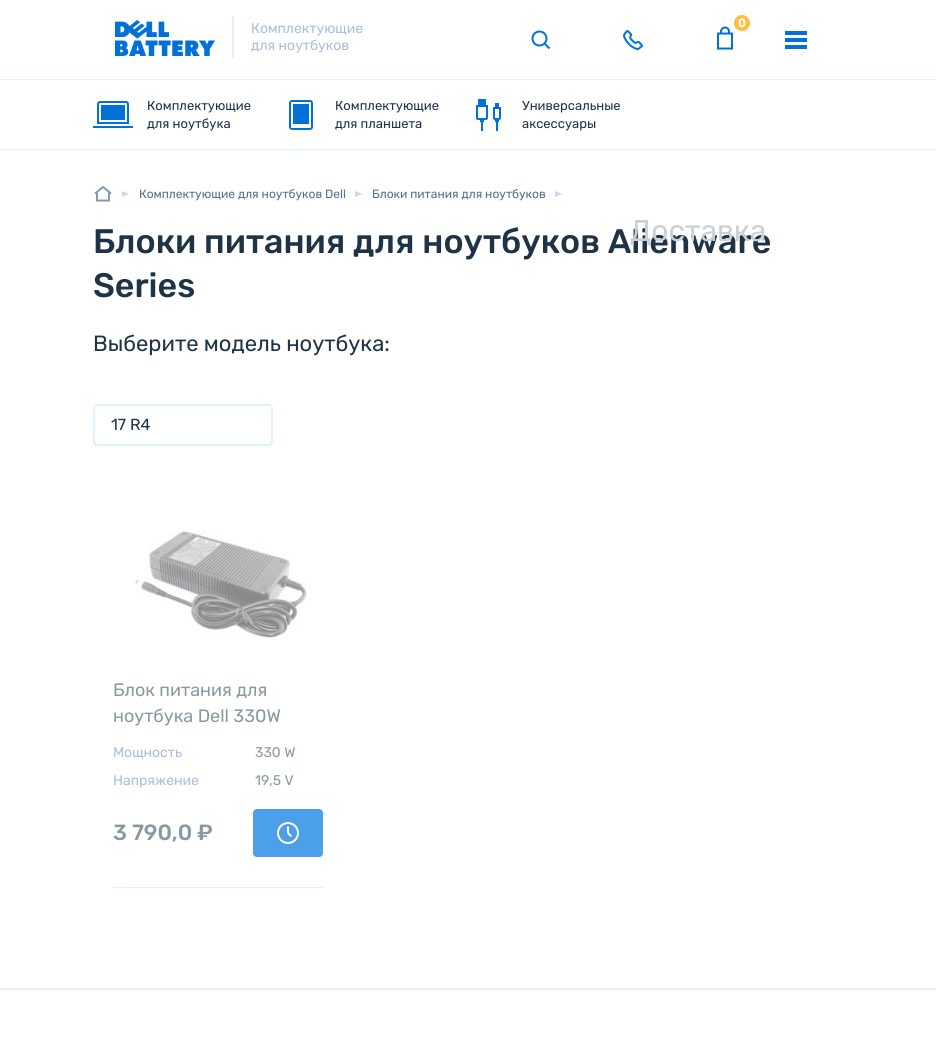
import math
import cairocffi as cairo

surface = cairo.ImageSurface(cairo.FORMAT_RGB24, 936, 1039)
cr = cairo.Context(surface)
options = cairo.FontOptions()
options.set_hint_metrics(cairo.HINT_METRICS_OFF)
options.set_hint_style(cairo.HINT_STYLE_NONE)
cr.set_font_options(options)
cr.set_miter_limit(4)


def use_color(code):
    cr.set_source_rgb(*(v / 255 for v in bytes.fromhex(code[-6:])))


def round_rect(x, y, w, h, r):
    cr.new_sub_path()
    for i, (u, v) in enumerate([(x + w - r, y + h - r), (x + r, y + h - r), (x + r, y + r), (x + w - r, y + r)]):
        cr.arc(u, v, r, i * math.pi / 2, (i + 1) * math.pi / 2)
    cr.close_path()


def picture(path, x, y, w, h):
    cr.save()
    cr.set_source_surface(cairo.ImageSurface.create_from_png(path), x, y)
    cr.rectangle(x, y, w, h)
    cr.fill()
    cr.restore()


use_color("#ffffff")
cr.paint()
use_color("#e5efff")
cr.rectangle(0, 79, 936, 1)
cr.fill()
cr.rectangle(232, 16, 2, 42)
cr.fill()
picture("img1.png", 115, 20, 100, 36)
cr.select_font_face("Rubik")
cr.set_font_size(14)
use_color("#aabfd7")
cr.move_to(251, 33)
cr.show_text("Комплектующие")
cr.move_to(251, 50)
cr.show_text("для ноутбуков")
picture("img2.png", 531, 30, 20, 20)
picture("img3.png", 623, 30, 20, 20)
use_color("#ffbe3f")
cr.arc(742, 23, 8, 0, 2 * math.pi)
cr.fill()
cr.select_font_face("Rubik SemiBold")
cr.set_font_size(12)
use_color("#ffffff")
cr.move_to(738, 27)
cr.show_text("0")
picture("img4.png", 717, 26, 16, 24)
use_color("#0071d9")
cr.rectangle(785, 31, 22, 4)
cr.fill()
cr.rectangle(785, 38, 22, 4)
cr.fill()
cr.rectangle(785, 45, 22, 4)
cr.fill()
cr.select_font_face("Rubik Medium")
cr.set_font_size(34)
use_color("#1f3347")
cr.move_to(93, 253)
cr.show_text("Блоки питания для ноутбуков Alienware")
cr.select_font_face("Rubik")
cr.set_font_size(30)
use_color("#ccd0d5")
cr.move_to(630, 241)
cr.show_text("Доставка")
use_color("#e5efff")
cr.rectangle(0, 149, 936, 1)
cr.fill()
picture("img5.png", 93, 101, 40, 27)
cr.set_font_size(13)
use_color("#1f3347")
cr.move_to(147, 110)
cr.show_text("Комплектующие")
cr.move_to(147, 128)
cr.show_text("для ноутбука")
picture("img6.png", 289, 100, 24, 30)
cr.move_to(335, 110)
cr.show_text("Комплектующие")
cr.move_to(335, 128)
cr.show_text("для планшета")
picture("img7.png", 476, 99, 25, 32)
cr.move_to(522, 110)
cr.show_text("Универсальные")
cr.move_to(522, 128)
cr.show_text("аксессуары")
picture("img8.png", 94, 185, 18, 17)
use_color("#c6d9ee")
cr.new_path()
cr.move_to(122, 197)
cr.line_to(122, 191)
cr.line_to(129, 194)
cr.close_path()
cr.fill()
cr.set_font_size(12)
use_color("#506e8d")
cr.move_to(139, 198)
cr.show_text("Комплектующие для ноутбуков Dell")
use_color("#c6d9ee")
cr.new_path()
cr.move_to(355, 197)
cr.line_to(355, 191)
cr.line_to(362, 194)
cr.close_path()
cr.fill()
use_color("#506e8d")
cr.move_to(372, 198)
cr.show_text("Блоки питания для ноутбуков")
use_color("#c6d9ee")
cr.new_path()
cr.move_to(555, 197)
cr.line_to(555, 191)
cr.line_to(562, 194)
cr.close_path()
cr.fill()
cr.select_font_face("Rubik Medium")
cr.set_font_size(34)
use_color("#1f3347")
cr.move_to(93, 297)
cr.show_text("Series")
cr.select_font_face("Rubik")
cr.set_font_size(22)
cr.move_to(93, 351)
cr.show_text("Выберите модель ноутбука:")
round_rect(94, 405, 178, 40, 3)
use_color("#e2f1fe")
cr.stroke()
cr.set_font_size(16)
use_color("#1f3347")
cr.move_to(111, 430)
cr.show_text("17 R4")
picture("img9.png", 135, 530, 172, 110)
cr.set_font_size(18)
use_color("#8a99a0")
cr.move_to(113, 696)
cr.show_text("Блок питания для")
cr.move_to(113, 722)
cr.show_text("ноутбука Dell 330W")
cr.set_font_size(14)
use_color("#aabfd7")
cr.move_to(113, 757)
cr.show_text("Мощность")
use_color("#8a99a0")
cr.move_to(255, 757)
cr.show_text("330 W")
use_color("#aabfd7")
cr.move_to(113, 785)
cr.show_text("Напряжение")
use_color("#8a99a0")
cr.move_to(255, 785)
cr.show_text("19,5 V")
use_color("#e5efff")
cr.rectangle(113, 887, 210, 1)
cr.fill()
cr.select_font_face("Rubik Medium")
cr.set_font_size(22)
use_color("#8a99a0")
cr.move_to(113, 840)
cr.show_text("3 790,0 ₽")
use_color("#4c9fe9")
round_rect(253, 809, 70, 48, 4)
cr.fill()
picture("img10.png", 277, 822, 22, 22)
use_color("#e5efff")
cr.rectangle(0, 988, 936, 2)
cr.fill()
surface.write_to_png("result.png")
